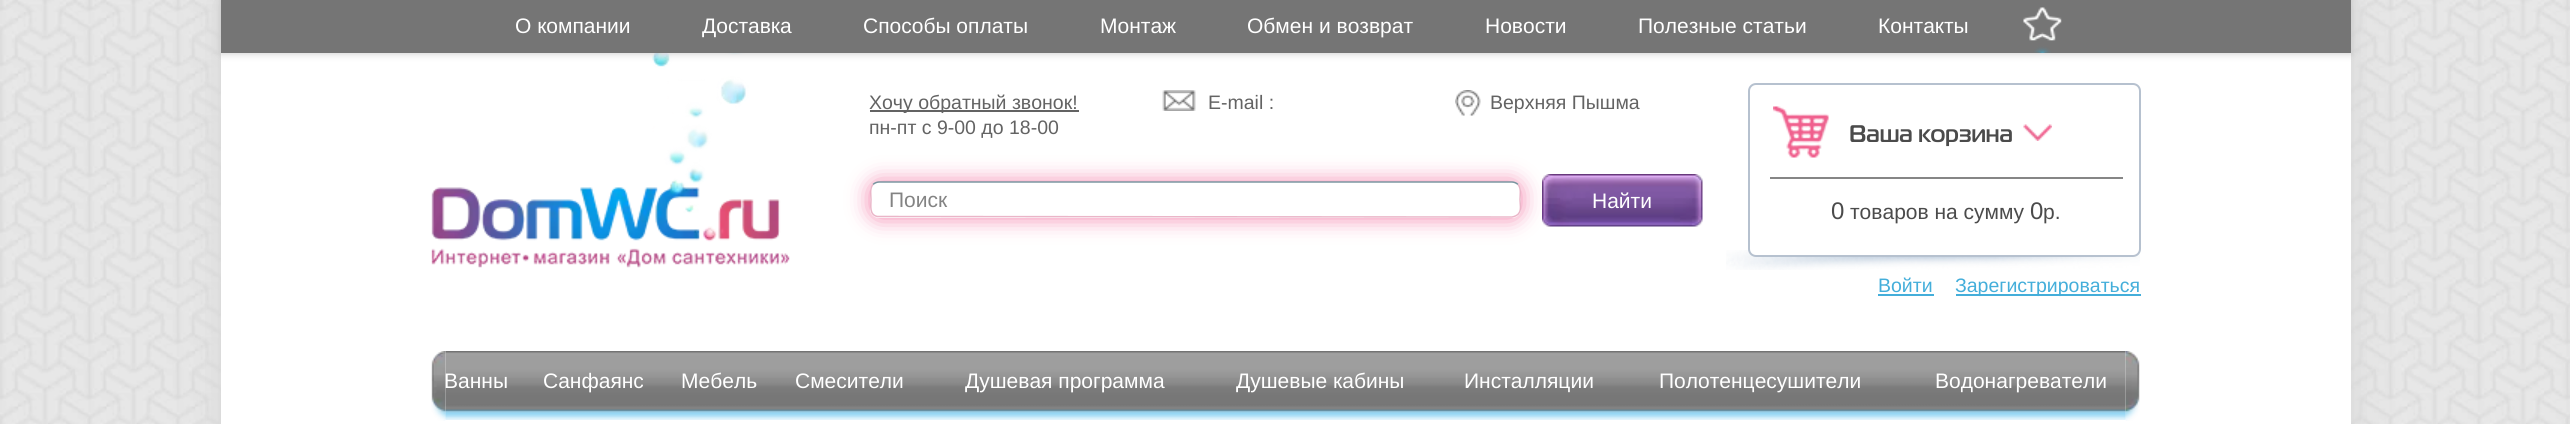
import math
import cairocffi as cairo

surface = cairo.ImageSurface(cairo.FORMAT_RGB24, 2570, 424)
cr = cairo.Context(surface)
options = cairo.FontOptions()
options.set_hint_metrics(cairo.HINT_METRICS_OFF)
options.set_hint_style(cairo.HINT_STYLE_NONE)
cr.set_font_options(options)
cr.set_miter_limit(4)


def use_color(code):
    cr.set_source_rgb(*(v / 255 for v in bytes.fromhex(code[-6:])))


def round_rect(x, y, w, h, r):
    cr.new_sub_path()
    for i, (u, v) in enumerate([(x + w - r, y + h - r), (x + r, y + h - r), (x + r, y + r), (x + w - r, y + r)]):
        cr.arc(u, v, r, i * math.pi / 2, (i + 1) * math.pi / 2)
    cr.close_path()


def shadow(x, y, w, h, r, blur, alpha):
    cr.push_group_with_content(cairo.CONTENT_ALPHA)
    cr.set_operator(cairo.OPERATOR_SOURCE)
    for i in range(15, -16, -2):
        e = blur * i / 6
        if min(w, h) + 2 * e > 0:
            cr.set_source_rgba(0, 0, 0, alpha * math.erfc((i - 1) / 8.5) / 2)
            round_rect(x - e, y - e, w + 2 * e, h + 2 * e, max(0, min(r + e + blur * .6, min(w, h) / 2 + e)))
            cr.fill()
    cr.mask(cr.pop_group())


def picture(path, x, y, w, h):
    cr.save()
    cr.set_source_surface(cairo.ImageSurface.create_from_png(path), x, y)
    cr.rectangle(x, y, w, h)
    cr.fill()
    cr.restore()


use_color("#ffffff")
cr.paint()
picture("img1.png", 0, 0, 2570, 424)
use_color("#d6d6d6")
shadow(221, 0, 2130, 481, 0, 19, 1)
use_color("#ffffff")
cr.rectangle(221, 53, 2130, 371)
cr.fill()
picture("img3.png", 431, 53, 359, 215)
use_color("#c5c5c5")
shadow(221, 0, 2130, 53, 0, 4, 1)
use_color("#757575")
cr.rectangle(221, 0, 2130, 53)
cr.fill()
cr.select_font_face("Liberation Sans")
cr.set_font_size(21)
use_color("#ffffff")
cr.move_to(515, 33)
cr.show_text("О компании")
cr.move_to(702, 33)
cr.show_text("Доставка")
cr.move_to(863, 33)
cr.show_text("Способы оплаты")
cr.move_to(1100, 33)
cr.show_text("Монтаж")
cr.move_to(1247, 33)
cr.show_text("Обмен и возврат")
cr.move_to(1485, 33)
cr.show_text("Новости")
cr.move_to(1638, 33)
cr.show_text("Полезные статьи")
cr.move_to(1878, 33)
cr.show_text("Контакты")
picture("img2.png", 2023, 7, 39, 46)
use_color("#636363")
cr.rectangle(870, 110, 209, 2)
cr.fill()
cr.set_font_size(19.5)
cr.move_to(869, 109)
cr.show_text("Хочу обратный звонок!")
cr.move_to(869, 134)
cr.show_text("пн-пт с 9-00 до 18-00")
picture("img4.png", 1162, 90, 34, 21)
cr.move_to(1208, 109)
cr.show_text("E-mail :")
picture("img5.png", 1455, 90, 26, 26)
cr.move_to(1490, 109)
cr.show_text("Верхняя Пышма")
picture("img6.png", 1542, 174, 161, 53)
use_color("#f582ac")
shadow(870, 182, 651, 36, 9, 11, 1)
use_color("#ffffff")
round_rect(870, 182, 651, 36, 9)
cr.fill()
cr.new_path()
cr.move_to(873, 184.5)
cr.curve_to(874.5, 183, 877, 182, 879, 182)
cr.line_to(1512, 182)
cr.curve_to(1514, 182, 1516.5, 183, 1518, 184.5)
use_color("#78949f")
cr.set_line_width(1.5)
cr.stroke()
cr.new_path()
cr.move_to(1518, 184.5)
cr.curve_to(1521.5, 188.5, 1520, 195, 1520, 199.5)
cr.curve_to(1520, 203.5, 1521.5, 209.5, 1519, 213)
cr.curve_to(1517.5, 215.5, 1514.5, 216.5, 1512, 217)
cr.line_to(877.5, 216.5)
cr.curve_to(869, 215, 871, 205.5, 871, 199.5)
cr.curve_to(871, 195, 869.5, 188.5, 873, 184.5)
use_color("#eab5c8")
cr.stroke()
cr.set_font_size(21)
use_color("#838383")
cr.move_to(889, 207)
cr.show_text("Поиск")
use_color("#ffffff")
cr.move_to(1592, 208)
cr.show_text("Найти")
picture("img9.png", 1726, 250, 414, 20)
round_rect(1749, 84, 391, 172, 7)
cr.fill_preserve()
use_color("#b6c1cf")
cr.set_line_width(2)
cr.stroke()
picture("img7.png", 1773, 106, 56, 52)
cr.select_font_face("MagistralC", cairo.FONT_SLANT_NORMAL, cairo.FONT_WEIGHT_BOLD)
cr.set_font_size(24)
use_color("#4b4b4b")
cr.move_to(1849, 142)
cr.show_text("Ваша корзина")
picture("img8.png", 2023, 124, 29, 17)
use_color("#868686")
cr.rectangle(1770, 177, 353, 2)
cr.fill()
cr.select_font_face("Liberation Sans")
use_color("#4b4b4b")
cr.move_to(1831, 219)
cr.show_text("0")
cr.set_font_size(21)
cr.move_to(1850, 219)
cr.show_text("товаров на сумму")
cr.set_font_size(24)
cr.move_to(2030, 219)
cr.show_text("0")
cr.set_font_size(21)
cr.move_to(2043, 219)
cr.show_text("р.")
cr.set_font_size(19.5)
use_color("#44aeda")
cr.move_to(1878, 292)
cr.show_text("Войти")
cr.rectangle(1878, 294, 56, 2)
cr.fill()
cr.rectangle(1956, 294, 185, 2)
cr.fill()
cr.move_to(1955, 292)
cr.show_text("Зарегистрироваться")
picture("img11.png", 445, 351, 1681, 69)
picture("img10.png", 431, 351, 15, 70)
picture("img12.png", 2125, 351, 15, 70)
cr.set_font_size(21)
use_color("#ffffff")
cr.move_to(444, 388)
cr.show_text("Ванны")
cr.move_to(543, 388)
cr.show_text("Санфаянс")
cr.move_to(681, 388)
cr.show_text("Мебель")
cr.move_to(795, 388)
cr.show_text("Смесители")
cr.move_to(965, 388)
cr.show_text("Душевая программа")
cr.move_to(1236, 388)
cr.show_text("Душевые кабины")
cr.move_to(1464, 388)
cr.show_text("Инсталляции")
cr.move_to(1659, 388)
cr.show_text("Полотенцесушители")
cr.move_to(1935, 388)
cr.show_text("Водонагреватели")
surface.write_to_png("result.png")
